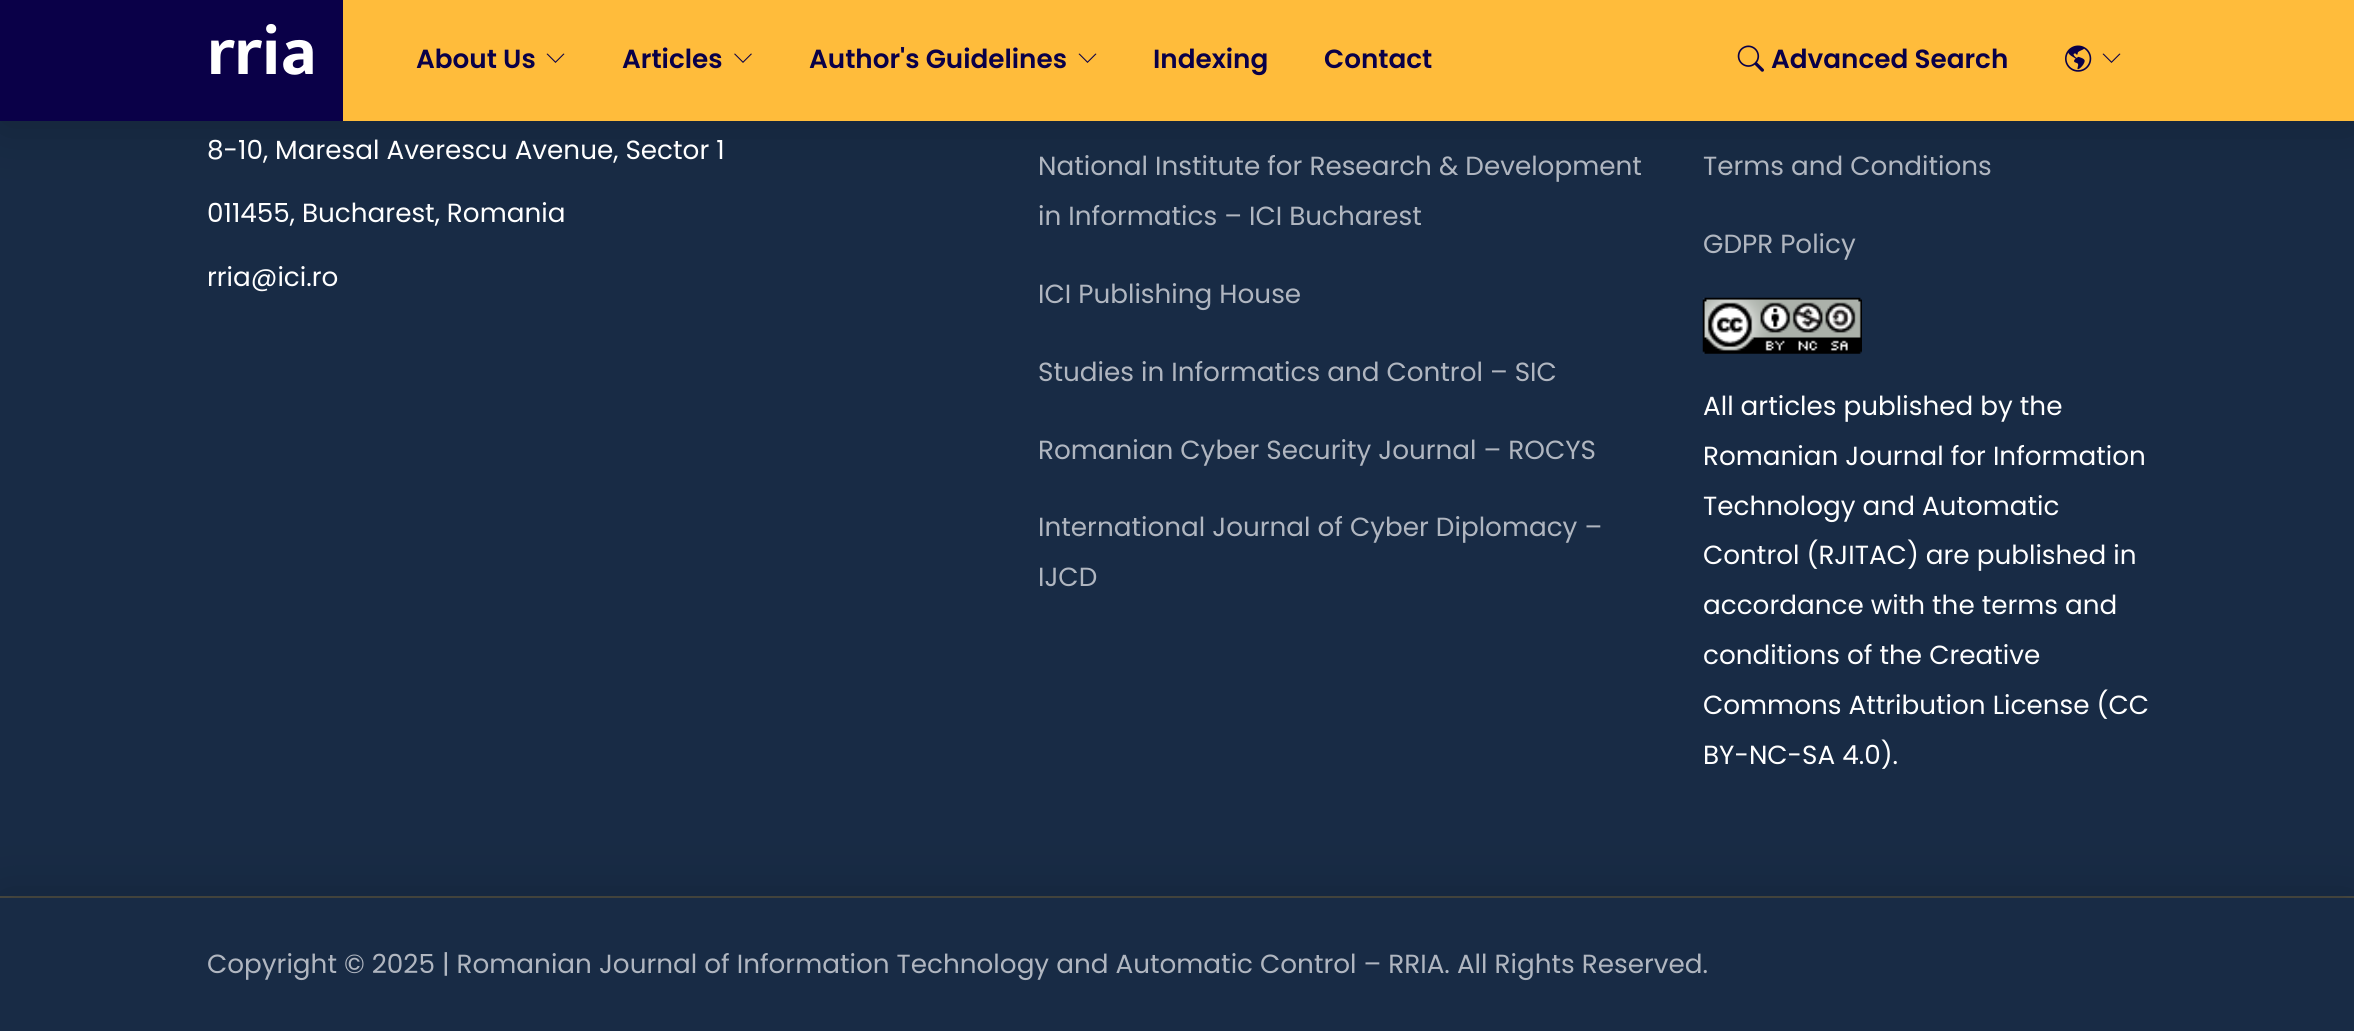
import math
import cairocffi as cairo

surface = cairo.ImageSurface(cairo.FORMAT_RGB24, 2354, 1031)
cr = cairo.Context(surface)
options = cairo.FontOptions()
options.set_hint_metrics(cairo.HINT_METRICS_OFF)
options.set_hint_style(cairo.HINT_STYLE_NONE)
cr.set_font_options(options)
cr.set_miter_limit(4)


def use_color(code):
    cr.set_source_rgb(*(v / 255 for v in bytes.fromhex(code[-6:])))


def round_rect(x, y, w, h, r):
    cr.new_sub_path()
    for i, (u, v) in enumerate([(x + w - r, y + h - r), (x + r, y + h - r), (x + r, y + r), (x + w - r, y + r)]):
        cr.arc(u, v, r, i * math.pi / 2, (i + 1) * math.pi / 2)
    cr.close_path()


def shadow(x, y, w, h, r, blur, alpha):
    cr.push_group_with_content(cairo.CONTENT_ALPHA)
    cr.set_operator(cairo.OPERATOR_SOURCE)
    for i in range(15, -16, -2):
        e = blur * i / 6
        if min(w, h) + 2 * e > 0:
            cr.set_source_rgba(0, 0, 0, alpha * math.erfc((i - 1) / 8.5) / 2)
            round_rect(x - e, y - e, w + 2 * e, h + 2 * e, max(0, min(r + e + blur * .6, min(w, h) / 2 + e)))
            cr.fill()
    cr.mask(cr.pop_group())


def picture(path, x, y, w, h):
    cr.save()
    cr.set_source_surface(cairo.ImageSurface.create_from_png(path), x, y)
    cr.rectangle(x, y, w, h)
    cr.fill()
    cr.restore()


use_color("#182b45")
cr.paint()
use_color("#000000")
shadow(0, 4, 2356, 120, 0, 30.5, 0.2)
use_color("#0a0048")
cr.rectangle(0, 0, 343, 121)
cr.fill()
use_color("#ffbc3b")
cr.rectangle(343, 0, 2011, 121)
cr.fill()
cr.select_font_face("Mukta", cairo.FONT_SLANT_NORMAL, cairo.FONT_WEIGHT_BOLD)
cr.set_font_size(70)
use_color("#ffffff")
cr.move_to(207, 74)
cr.show_text("rria")
cr.select_font_face("Poppins SemiBold")
cr.set_font_size(26.25)
use_color("#0a0048")
cr.move_to(416, 68)
cr.show_text("About Us")
cr.new_path()
cr.move_to(564.5, 54)
cr.line_to(555.5, 63)
cr.line_to(546.5, 54)
cr.line_to(547.5, 53.5)
cr.line_to(555.5, 61.5)
cr.line_to(563.5, 53.5)
cr.close_path()
cr.fill()
cr.move_to(622, 68)
cr.show_text("Articles")
cr.new_path()
cr.move_to(752, 54)
cr.line_to(743, 63)
cr.line_to(734, 54)
cr.line_to(735, 53.5)
cr.line_to(743, 61.5)
cr.line_to(751, 53.5)
cr.close_path()
cr.fill()
cr.move_to(809, 68)
cr.show_text("Author's Guidelines")
cr.new_path()
cr.move_to(1096.5, 54)
cr.line_to(1087.5, 63)
cr.line_to(1078.5, 54)
cr.line_to(1079.5, 53.5)
cr.line_to(1087.5, 61.5)
cr.line_to(1095.5, 53.5)
cr.close_path()
cr.fill()
cr.move_to(1153, 68)
cr.show_text("Indexing")
cr.move_to(1324, 68)
cr.show_text("Contact")
picture("img1.png", 1737, 45, 27, 27)
cr.move_to(1771, 68)
cr.show_text("Advanced Search")
picture("img2.png", 2065, 45, 27, 27)
cr.new_path()
cr.move_to(2120.5, 54)
cr.line_to(2111.5, 63)
cr.line_to(2102.5, 54)
cr.line_to(2103.5, 53.5)
cr.line_to(2111.5, 61.5)
cr.line_to(2119.5, 53.5)
cr.close_path()
cr.fill()
use_color("#494a43")
cr.rectangle(0, 896, 2354, 2)
cr.fill()
cr.select_font_face("Poppins")
use_color("#ffffff")
cr.move_to(207, 159)
cr.show_text("8-10, Maresal Averescu Avenue, Sector 1")
cr.move_to(207, 222)
cr.show_text("011455, Bucharest, Romania")
cr.move_to(207, 286)
cr.show_text("rria@ici.ro")
use_color("#b0b6c0")
cr.move_to(1038, 175)
cr.show_text("National Institute for Research & Development")
cr.move_to(1038, 225)
cr.show_text("in Informatics – ICI Bucharest")
cr.move_to(1038, 303)
cr.show_text("ICI Publishing House")
cr.move_to(1038, 381)
cr.show_text("Studies in Informatics and Control – SIC")
cr.move_to(1038, 459)
cr.show_text("Romanian Cyber Security Journal – ROCYS")
cr.move_to(1038, 536)
cr.show_text("International Journal of Cyber Diplomacy –")
cr.move_to(1038, 586)
cr.show_text("IJCD")
cr.move_to(1703, 175)
cr.show_text("Terms and Conditions")
cr.move_to(1703, 253)
cr.show_text("GDPR Policy")
picture("img3.png", 1702, 297, 160, 57)
use_color("#ffffff")
cr.move_to(1703, 415)
cr.show_text("All articles published by the")
cr.move_to(1703, 465)
cr.show_text("Romanian Journal for Information")
cr.move_to(1703, 515)
cr.show_text("Technology and Automatic")
cr.move_to(1703, 564)
cr.show_text("Control (RJITAC) are published in")
cr.move_to(1703, 614)
cr.show_text("accordance with the terms and")
cr.move_to(1703, 664)
cr.show_text("conditions of the Creative")
cr.move_to(1703, 714)
cr.show_text("Commons Attribution License (CC")
cr.move_to(1703, 764)
cr.show_text("BY-NC-SA 4.0).")
use_color("#000000")
shadow(0, 901, 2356, 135, 0, 30.5, 0.2)
use_color("#182b45")
cr.rectangle(0, 898, 2354, 133)
cr.fill()
use_color("#b0b6c0")
cr.move_to(207, 973)
cr.show_text("Copyright © 2025 | Romanian Journal of Information Technology and Automatic Control – RRIA. All Rights Reserved.")
surface.write_to_png("result.png")
